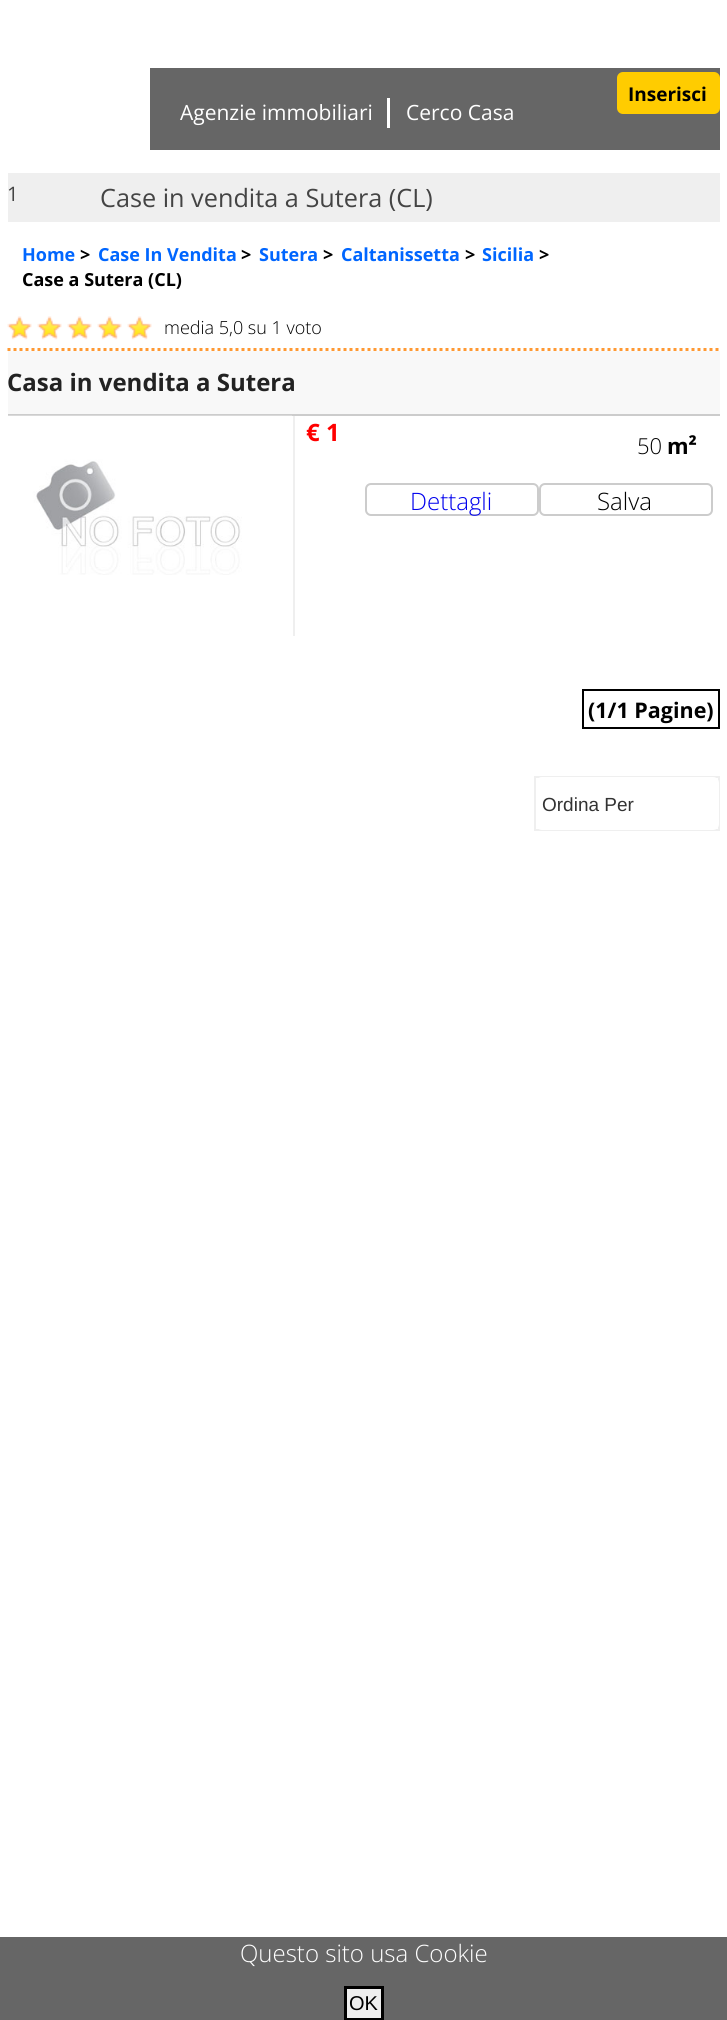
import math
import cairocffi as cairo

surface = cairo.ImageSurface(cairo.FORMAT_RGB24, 727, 2020)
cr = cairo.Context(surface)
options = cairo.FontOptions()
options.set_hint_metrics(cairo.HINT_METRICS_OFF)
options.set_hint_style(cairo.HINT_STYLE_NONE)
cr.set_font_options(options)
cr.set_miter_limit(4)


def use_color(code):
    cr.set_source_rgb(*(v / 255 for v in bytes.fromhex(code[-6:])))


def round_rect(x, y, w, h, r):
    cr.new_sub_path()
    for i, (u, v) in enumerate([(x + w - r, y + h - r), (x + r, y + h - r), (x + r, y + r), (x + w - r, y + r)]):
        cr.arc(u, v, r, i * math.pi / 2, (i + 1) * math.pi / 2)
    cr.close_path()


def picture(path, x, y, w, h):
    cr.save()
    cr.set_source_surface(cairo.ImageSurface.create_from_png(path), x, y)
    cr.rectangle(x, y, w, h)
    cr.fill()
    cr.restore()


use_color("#ffffff")
cr.paint()
use_color("#666666")
cr.rectangle(150, 68, 570, 82)
cr.fill()
use_color("#ffcc00")
round_rect(617, 72, 103, 42, 6)
cr.fill()
cr.select_font_face("Open Sans", cairo.FONT_SLANT_NORMAL, cairo.FONT_WEIGHT_BOLD)
cr.set_font_size(19)
use_color("#000000")
cr.move_to(628, 101)
cr.show_text("Inserisci")
cr.select_font_face("Open Sans")
cr.set_font_size(21)
use_color("#ffffff")
cr.move_to(180, 120)
cr.show_text("Agenzie immobiliari")
cr.rectangle(387, 98, 3, 30)
cr.fill()
cr.move_to(406, 120)
cr.show_text("Cerco Casa")
use_color("#efefef")
cr.rectangle(8, 173, 712, 49)
cr.fill()
cr.set_font_size(20)
use_color("#444444")
cr.move_to(7, 201)
cr.show_text("1")
cr.set_font_size(25.25)
cr.move_to(100, 207)
cr.show_text("Case in vendita a Sutera (CL)")
cr.select_font_face("Open Sans", cairo.FONT_SLANT_NORMAL, cairo.FONT_WEIGHT_BOLD)
cr.set_font_size(18)
use_color("#0066ff")
cr.move_to(22, 261)
cr.show_text("Home")
use_color("#000000")
cr.move_to(80, 261)
cr.show_text(">")
use_color("#0066ff")
cr.move_to(98, 261)
cr.show_text("Case In Vendita")
use_color("#000000")
cr.move_to(241, 261)
cr.show_text(">")
use_color("#0066ff")
cr.move_to(259, 261)
cr.show_text("Sutera")
use_color("#000000")
cr.move_to(323, 261)
cr.show_text(">")
use_color("#0066ff")
cr.move_to(341, 261)
cr.show_text("Caltanissetta")
use_color("#000000")
cr.move_to(465, 261)
cr.show_text(">")
use_color("#0066ff")
cr.move_to(482, 261)
cr.show_text("Sicilia")
use_color("#000000")
cr.move_to(539, 261)
cr.show_text(">")
cr.move_to(22, 286)
cr.show_text("Case a Sutera (CL)")
picture("img1.png", 7, 316, 25, 24)
picture("img1.png", 37, 316, 25, 24)
picture("img1.png", 67, 316, 25, 24)
picture("img1.png", 97, 316, 25, 24)
picture("img1.png", 127, 316, 25, 24)
cr.select_font_face("Open Sans Light")
cr.move_to(164, 334)
cr.show_text("media 5,0 su 1 voto")
cr.new_path()
cr.move_to(7.5, 349.5)
cr.line_to(720, 349.5)
use_color("#ff9933")
cr.set_line_width(3)
cr.set_dash([3, 3])
cr.stroke()
use_color("#f8f8f8")
cr.rectangle(8, 351, 712, 63)
cr.fill()
use_color("#cccccc")
cr.rectangle(8, 414, 712, 2)
cr.fill()
cr.select_font_face("Open Sans", cairo.FONT_SLANT_NORMAL, cairo.FONT_WEIGHT_BOLD)
cr.set_font_size(24)
use_color("#222222")
cr.move_to(7, 391)
cr.show_text("Casa in vendita a Sutera")
use_color("#efefef")
cr.rectangle(293, 416, 2, 220)
cr.fill()
picture("img2.png", 8, 415, 284, 160)
use_color("#ff0000")
cr.move_to(306, 441)
cr.show_text("€ 1")
cr.select_font_face("Open Sans Light")
cr.set_font_size(22)
use_color("#000000")
cr.move_to(637, 454)
cr.show_text("50")
cr.select_font_face("Open Sans", cairo.FONT_SLANT_NORMAL, cairo.FONT_WEIGHT_BOLD)
cr.move_to(667, 454)
cr.show_text("m²")
round_rect(366, 484, 172, 31, 5)
use_color("#cccccc")
cr.set_line_width(2)
cr.set_dash([])
cr.stroke()
cr.select_font_face("Open Sans Light")
cr.set_font_size(24)
use_color("#0000ee")
cr.move_to(410, 510)
cr.show_text("Dettagli")
round_rect(540, 484, 172, 31, 5)
use_color("#cccccc")
cr.stroke()
use_color("#000000")
cr.move_to(597, 510)
cr.show_text("Salva")
cr.rectangle(583, 690, 136, 38)
cr.stroke()
cr.select_font_face("Open Sans", cairo.FONT_SLANT_NORMAL, cairo.FONT_WEIGHT_BOLD)
cr.set_font_size(21.5)
cr.move_to(588, 718)
cr.show_text("(1/1 Pagine)")
cr.rectangle(535, 777, 184, 53)
use_color("#efefef")
cr.stroke()
use_color("#ffffff")
round_rect(536, 777, 183, 53, 6)
cr.fill()
cr.select_font_face("Liberation Sans")
cr.set_font_size(19)
use_color("#333333")
cr.move_to(542, 811)
cr.show_text("Ordina Per")
use_color("#666666")
cr.rectangle(0, 1937, 727, 83)
cr.fill()
cr.select_font_face("Open Sans Light")
cr.set_font_size(24)
use_color("#ffffff")
cr.move_to(240, 1962)
cr.show_text("Questo sito usa Cookie")
use_color("#efefef")
cr.rectangle(345.5, 1987.5, 37, 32)
cr.fill_preserve()
use_color("#000000")
cr.set_line_width(3)
cr.stroke()
cr.select_font_face("Liberation Sans")
cr.set_font_size(20)
cr.move_to(349, 2010)
cr.show_text("OK")
surface.write_to_png("result.png")
